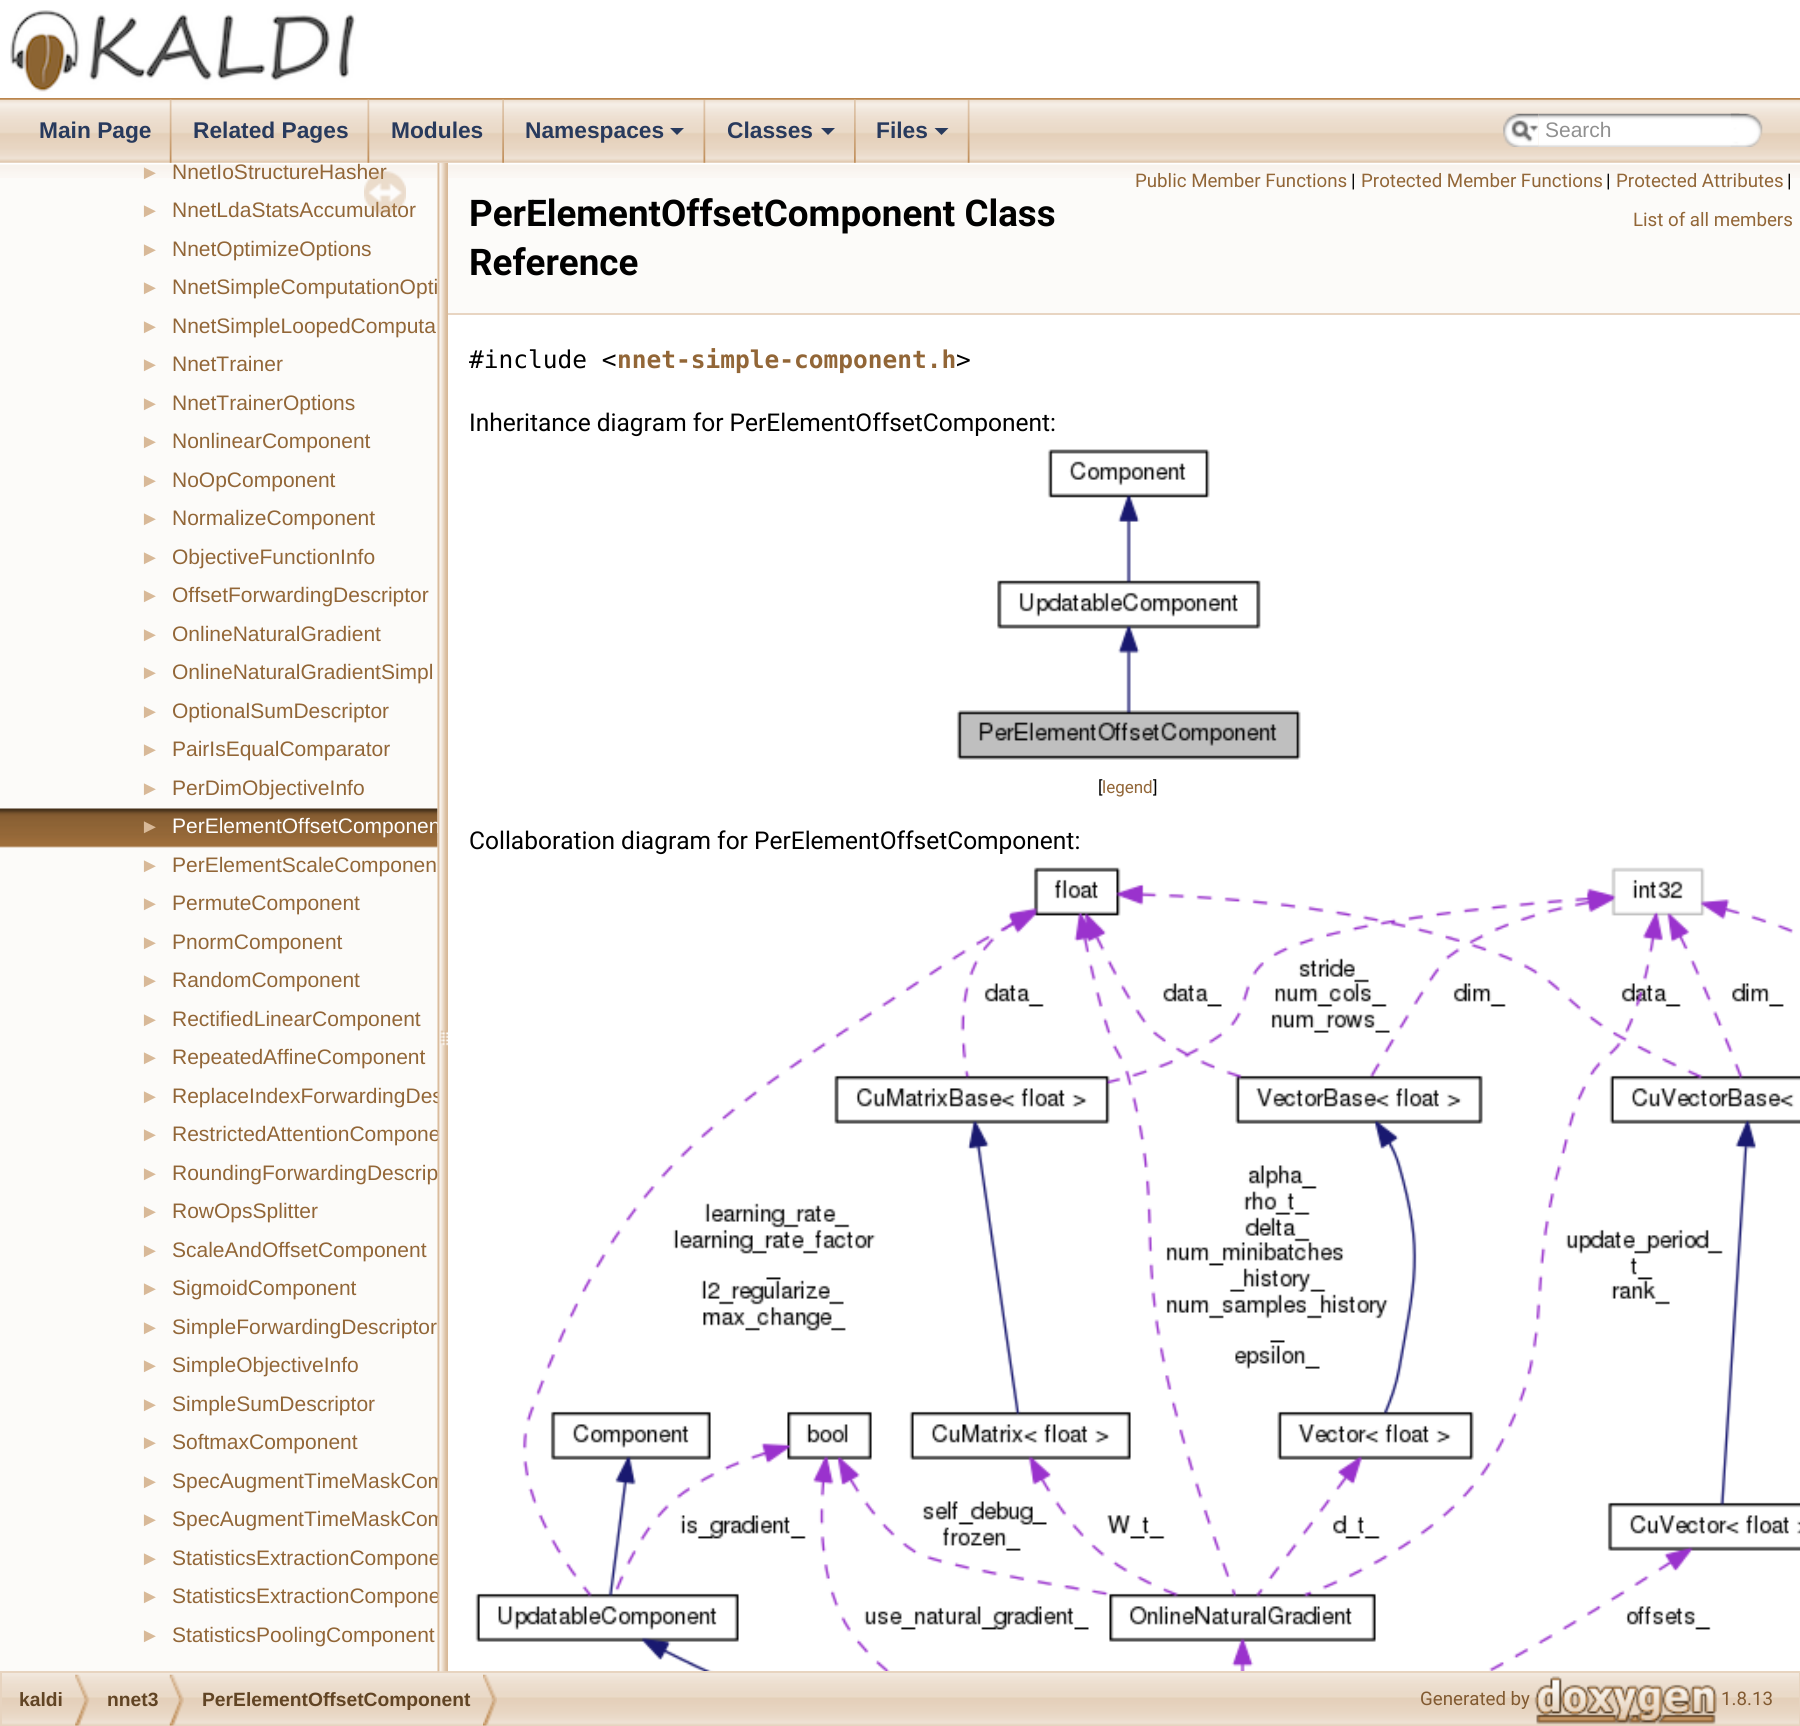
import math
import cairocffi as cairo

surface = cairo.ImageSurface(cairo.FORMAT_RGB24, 1800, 1726)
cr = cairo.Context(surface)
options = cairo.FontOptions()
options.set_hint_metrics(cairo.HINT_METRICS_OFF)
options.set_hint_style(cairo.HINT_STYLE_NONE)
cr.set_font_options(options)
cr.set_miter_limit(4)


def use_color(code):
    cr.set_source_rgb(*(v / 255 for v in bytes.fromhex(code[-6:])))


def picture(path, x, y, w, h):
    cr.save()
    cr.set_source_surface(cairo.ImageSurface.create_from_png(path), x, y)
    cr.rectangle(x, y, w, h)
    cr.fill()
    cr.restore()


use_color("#ffffff")
cr.paint()
use_color("#bb854c")
cr.rectangle(0, 98, 1800, 2)
cr.fill()
picture("img1.png", 10, 10, 346, 82)
use_color("#fcfbf9")
cr.rectangle(0, 163, 438, 1508)
cr.fill()
picture("img13.png", 0, 163, 438, 15)
picture("img14.png", 0, 808, 438, 40)
cr.select_font_face("Liberation Sans")
cr.set_font_size(21)
use_color("#ffffff")
cr.move_to(172, 833)
cr.show_text("PerElementOffsetComponen")
use_color("#926637")
cr.move_to(172, 1103)
cr.show_text("ReplaceIndexForwardingDes")
cr.move_to(172, 1141)
cr.show_text("RestrictedAttentionCompone")
cr.move_to(172, 1488)
cr.show_text("SpecAugmentTimeMaskCom")
cr.move_to(172, 1526)
cr.show_text("SpecAugmentTimeMaskCom")
cr.move_to(172, 1565)
cr.show_text("StatisticsExtractionCompone")
cr.move_to(172, 1603)
cr.show_text("StatisticsExtractionCompone")
picture("img20.png", 2, 1673, 1797, 52)
cr.rectangle(1, 1672, 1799, 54)
use_color("#e7d4c0")
cr.stroke()
picture("img16.png", 437, 162, 11, 1510)
picture("img2.png", 0, 99, 1800, 64)
picture("img3.png", 169, 99, 3, 64)
cr.select_font_face("Liberation Sans", cairo.FONT_SLANT_NORMAL, cairo.FONT_WEIGHT_BOLD)
cr.set_font_size(22.75)
use_color("#283a5d")
cr.move_to(39, 138)
cr.show_text("Main Page")
picture("img4.png", 367, 99, 3, 64)
cr.move_to(193, 138)
cr.show_text("Related Pages")
picture("img5.png", 502, 99, 2, 64)
cr.move_to(391, 138)
cr.show_text("Modules")
picture("img6.png", 703, 100, 3, 63)
cr.move_to(525, 138)
cr.show_text("Namespaces")
cr.new_path()
cr.move_to(670, 128)
cr.line_to(684, 128)
cr.line_to(677, 135)
cr.close_path()
cr.fill()
picture("img7.png", 854, 99, 2, 64)
cr.move_to(727, 138)
cr.show_text("Classes")
cr.new_path()
cr.move_to(821, 128)
cr.line_to(835, 128)
cr.line_to(828, 135)
cr.close_path()
cr.fill()
picture("img8.png", 967, 100, 3, 63)
cr.move_to(876, 138)
cr.show_text("Files")
cr.new_path()
cr.move_to(934.5, 128)
cr.line_to(948.5, 128)
cr.line_to(941.5, 135)
cr.close_path()
cr.fill()
picture("img9.png", 1503, 113, 36, 34)
picture("img10.png", 1511, 120, 28, 22)
picture("img11.png", 1538, 113, 202, 34)
cr.select_font_face("Liberation Sans")
cr.set_font_size(21)
use_color("#909090")
cr.move_to(1545, 137)
cr.show_text("Search")
picture("img12.png", 1730, 113, 33, 34)
cr.set_font_size(20)
use_color("#d8b998")
cr.move_to(140, 179)
cr.show_text("►")
cr.set_font_size(21)
use_color("#926637")
cr.move_to(172, 179)
cr.show_text("NnetIoStructureHasher")
cr.set_font_size(20)
use_color("#d8b998")
cr.move_to(140, 217)
cr.show_text("►")
cr.set_font_size(21)
use_color("#926637")
cr.move_to(172, 217)
cr.show_text("NnetLdaStatsAccumulator")
cr.set_font_size(20)
use_color("#d8b998")
cr.move_to(140, 256)
cr.show_text("►")
cr.set_font_size(21)
use_color("#926637")
cr.move_to(172, 256)
cr.show_text("NnetOptimizeOptions")
cr.set_font_size(20)
use_color("#d8b998")
cr.move_to(140, 294)
cr.show_text("►")
cr.set_font_size(21)
use_color("#926637")
cr.move_to(172, 294)
cr.show_text("NnetSimpleComputationOpti")
cr.set_font_size(20)
use_color("#d8b998")
cr.move_to(140, 333)
cr.show_text("►")
cr.set_font_size(21)
use_color("#926637")
cr.move_to(172, 333)
cr.show_text("NnetSimpleLoopedComputa")
cr.set_font_size(20)
use_color("#d8b998")
cr.move_to(140, 371)
cr.show_text("►")
cr.set_font_size(21)
use_color("#926637")
cr.move_to(172, 371)
cr.show_text("NnetTrainer")
cr.set_font_size(20)
use_color("#d8b998")
cr.move_to(140, 410)
cr.show_text("►")
cr.set_font_size(21)
use_color("#926637")
cr.move_to(172, 410)
cr.show_text("NnetTrainerOptions")
cr.set_font_size(20)
use_color("#d8b998")
cr.move_to(140, 448)
cr.show_text("►")
cr.set_font_size(21)
use_color("#926637")
cr.move_to(172, 448)
cr.show_text("NonlinearComponent")
cr.set_font_size(20)
use_color("#d8b998")
cr.move_to(140, 487)
cr.show_text("►")
cr.set_font_size(21)
use_color("#926637")
cr.move_to(172, 487)
cr.show_text("NoOpComponent")
cr.set_font_size(20)
use_color("#d8b998")
cr.move_to(140, 525)
cr.show_text("►")
cr.set_font_size(21)
use_color("#926637")
cr.move_to(172, 525)
cr.show_text("NormalizeComponent")
cr.set_font_size(20)
use_color("#d8b998")
cr.move_to(140, 564)
cr.show_text("►")
cr.set_font_size(21)
use_color("#926637")
cr.move_to(172, 564)
cr.show_text("ObjectiveFunctionInfo")
cr.set_font_size(20)
use_color("#d8b998")
cr.move_to(140, 602)
cr.show_text("►")
cr.set_font_size(21)
use_color("#926637")
cr.move_to(172, 602)
cr.show_text("OffsetForwardingDescriptor")
cr.set_font_size(20)
use_color("#d8b998")
cr.move_to(140, 641)
cr.show_text("►")
cr.set_font_size(21)
use_color("#926637")
cr.move_to(172, 641)
cr.show_text("OnlineNaturalGradient")
cr.set_font_size(20)
use_color("#d8b998")
cr.move_to(140, 679)
cr.show_text("►")
cr.set_font_size(21)
use_color("#926637")
cr.move_to(172, 679)
cr.show_text("OnlineNaturalGradientSimpl")
cr.set_font_size(20)
use_color("#d8b998")
cr.move_to(140, 718)
cr.show_text("►")
cr.set_font_size(21)
use_color("#926637")
cr.move_to(172, 718)
cr.show_text("OptionalSumDescriptor")
cr.set_font_size(20)
use_color("#d8b998")
cr.move_to(140, 756)
cr.show_text("►")
cr.set_font_size(21)
use_color("#926637")
cr.move_to(172, 756)
cr.show_text("PairIsEqualComparator")
cr.set_font_size(20)
use_color("#d8b998")
cr.move_to(140, 795)
cr.show_text("►")
cr.set_font_size(21)
use_color("#926637")
cr.move_to(172, 795)
cr.show_text("PerDimObjectiveInfo")
cr.set_font_size(20)
use_color("#d8b998")
cr.move_to(140, 833)
cr.show_text("►")
cr.move_to(140, 872)
cr.show_text("►")
cr.set_font_size(21)
use_color("#926637")
cr.move_to(172, 872)
cr.show_text("PerElementScaleComponen")
cr.set_font_size(20)
use_color("#d8b998")
cr.move_to(140, 910)
cr.show_text("►")
cr.set_font_size(21)
use_color("#926637")
cr.move_to(172, 910)
cr.show_text("PermuteComponent")
cr.set_font_size(20)
use_color("#d8b998")
cr.move_to(140, 949)
cr.show_text("►")
cr.set_font_size(21)
use_color("#926637")
cr.move_to(172, 949)
cr.show_text("PnormComponent")
cr.set_font_size(20)
use_color("#d8b998")
cr.move_to(140, 987)
cr.show_text("►")
cr.set_font_size(21)
use_color("#926637")
cr.move_to(172, 987)
cr.show_text("RandomComponent")
cr.set_font_size(20)
use_color("#d8b998")
cr.move_to(140, 1026)
cr.show_text("►")
cr.set_font_size(21)
use_color("#926637")
cr.move_to(172, 1026)
cr.show_text("RectifiedLinearComponent")
cr.set_font_size(20)
use_color("#d8b998")
cr.move_to(140, 1064)
cr.show_text("►")
cr.set_font_size(21)
use_color("#926637")
cr.move_to(172, 1064)
cr.show_text("RepeatedAffineComponent")
cr.set_font_size(20)
use_color("#d8b998")
cr.move_to(140, 1103)
cr.show_text("►")
cr.move_to(140, 1141)
cr.show_text("►")
cr.move_to(140, 1180)
cr.show_text("►")
cr.set_font_size(21)
use_color("#926637")
cr.move_to(172, 1180)
cr.show_text("RoundingForwardingDescrip")
cr.set_font_size(20)
use_color("#d8b998")
cr.move_to(140, 1218)
cr.show_text("►")
cr.set_font_size(21)
use_color("#926637")
cr.move_to(172, 1218)
cr.show_text("RowOpsSplitter")
cr.set_font_size(20)
use_color("#d8b998")
cr.move_to(140, 1257)
cr.show_text("►")
cr.set_font_size(21)
use_color("#926637")
cr.move_to(172, 1257)
cr.show_text("ScaleAndOffsetComponent")
cr.set_font_size(20)
use_color("#d8b998")
cr.move_to(140, 1295)
cr.show_text("►")
cr.set_font_size(21)
use_color("#926637")
cr.move_to(172, 1295)
cr.show_text("SigmoidComponent")
cr.set_font_size(20)
use_color("#d8b998")
cr.move_to(140, 1334)
cr.show_text("►")
cr.set_font_size(21)
use_color("#926637")
cr.move_to(172, 1334)
cr.show_text("SimpleForwardingDescriptor")
cr.set_font_size(20)
use_color("#d8b998")
cr.move_to(140, 1372)
cr.show_text("►")
cr.set_font_size(21)
use_color("#926637")
cr.move_to(172, 1372)
cr.show_text("SimpleObjectiveInfo")
cr.set_font_size(20)
use_color("#d8b998")
cr.move_to(140, 1411)
cr.show_text("►")
cr.set_font_size(21)
use_color("#926637")
cr.move_to(172, 1411)
cr.show_text("SimpleSumDescriptor")
cr.set_font_size(20)
use_color("#d8b998")
cr.move_to(140, 1449)
cr.show_text("►")
cr.set_font_size(21)
use_color("#926637")
cr.move_to(172, 1449)
cr.show_text("SoftmaxComponent")
cr.set_font_size(20)
use_color("#d8b998")
cr.move_to(140, 1488)
cr.show_text("►")
cr.move_to(140, 1526)
cr.show_text("►")
cr.move_to(140, 1565)
cr.show_text("►")
cr.move_to(140, 1603)
cr.show_text("►")
cr.move_to(140, 1642)
cr.show_text("►")
cr.set_font_size(21)
use_color("#926637")
cr.move_to(172, 1642)
cr.show_text("StatisticsPoolingComponent")
picture("img15.png", 364, 171, 42, 43)
use_color("#fcfbf9")
cr.rectangle(448, 178, 1352, 135)
cr.fill()
picture("img17.png", 448, 163, 1352, 15)
use_color("#e8d5c2")
cr.rectangle(448, 313, 1352, 2)
cr.fill()
cr.select_font_face("Roboto", cairo.FONT_SLANT_NORMAL, cairo.FONT_WEIGHT_BOLD)
cr.set_font_size(36.75)
use_color("#000000")
cr.move_to(469, 226)
cr.show_text("PerElementOffsetComponent Class")
cr.move_to(469, 275)
cr.show_text("Reference")
cr.select_font_face("Roboto")
cr.set_font_size(18.7)
use_color("#926637")
cr.move_to(1135, 187)
cr.show_text("Public Member Functions")
use_color("#000000")
cr.move_to(1351, 187)
cr.show_text("|")
use_color("#926637")
cr.move_to(1361, 187)
cr.show_text("Protected Member Functions")
use_color("#000000")
cr.move_to(1606, 187)
cr.show_text("|")
use_color("#926637")
cr.move_to(1616, 187)
cr.show_text("Protected Attributes")
use_color("#000000")
cr.move_to(1787, 187)
cr.show_text("|")
use_color("#926637")
cr.move_to(1633, 226)
cr.show_text("List of all members")
cr.select_font_face("DejaVu Sans Mono")
cr.set_font_size(24.5)
use_color("#000000")
cr.move_to(469, 368)
cr.show_text("#include <")
cr.select_font_face("DejaVu Sans Mono", cairo.FONT_SLANT_NORMAL, cairo.FONT_WEIGHT_BOLD)
use_color("#926637")
cr.move_to(617, 368)
cr.show_text("nnet-simple-component.h")
cr.select_font_face("DejaVu Sans Mono")
use_color("#000000")
cr.move_to(956, 368)
cr.show_text(">")
cr.select_font_face("Roboto")
cr.move_to(469, 431)
cr.show_text("Inheritance diagram for PerElementOffsetComponent:")
picture("img18.png", 956, 449, 345, 311)
cr.set_font_size(17)
cr.move_to(1098, 793)
cr.show_text("[")
use_color("#926637")
cr.move_to(1102, 793)
cr.show_text("legend")
use_color("#000000")
cr.move_to(1153, 793)
cr.show_text("]")
cr.set_font_size(24.5)
cr.move_to(469, 849)
cr.show_text("Collaboration diagram for PerElementOffsetComponent:")
picture("img19.png", 475, 867, 1325, 804)
picture("img21.png", 75, 1674, 15, 52)
cr.select_font_face("Liberation Sans", cairo.FONT_SLANT_NORMAL, cairo.FONT_WEIGHT_BOLD)
cr.set_font_size(19.25)
use_color("#614424")
cr.move_to(19, 1706)
cr.show_text("kaldi")
picture("img22.png", 169, 1674, 15, 52)
cr.move_to(107, 1706)
cr.show_text("nnet3")
picture("img23.png", 483, 1674, 14, 52)
cr.move_to(202, 1706)
cr.show_text("PerElementOffsetComponent")
cr.select_font_face("Roboto")
cr.set_font_size(18.7)
use_color("#825a31")
cr.move_to(1420, 1705)
cr.show_text("Generated by")
picture("img24.png", 1534, 1676, 183, 49)
cr.move_to(1721, 1705)
cr.show_text("1.8.13")
surface.write_to_png("result.png")
